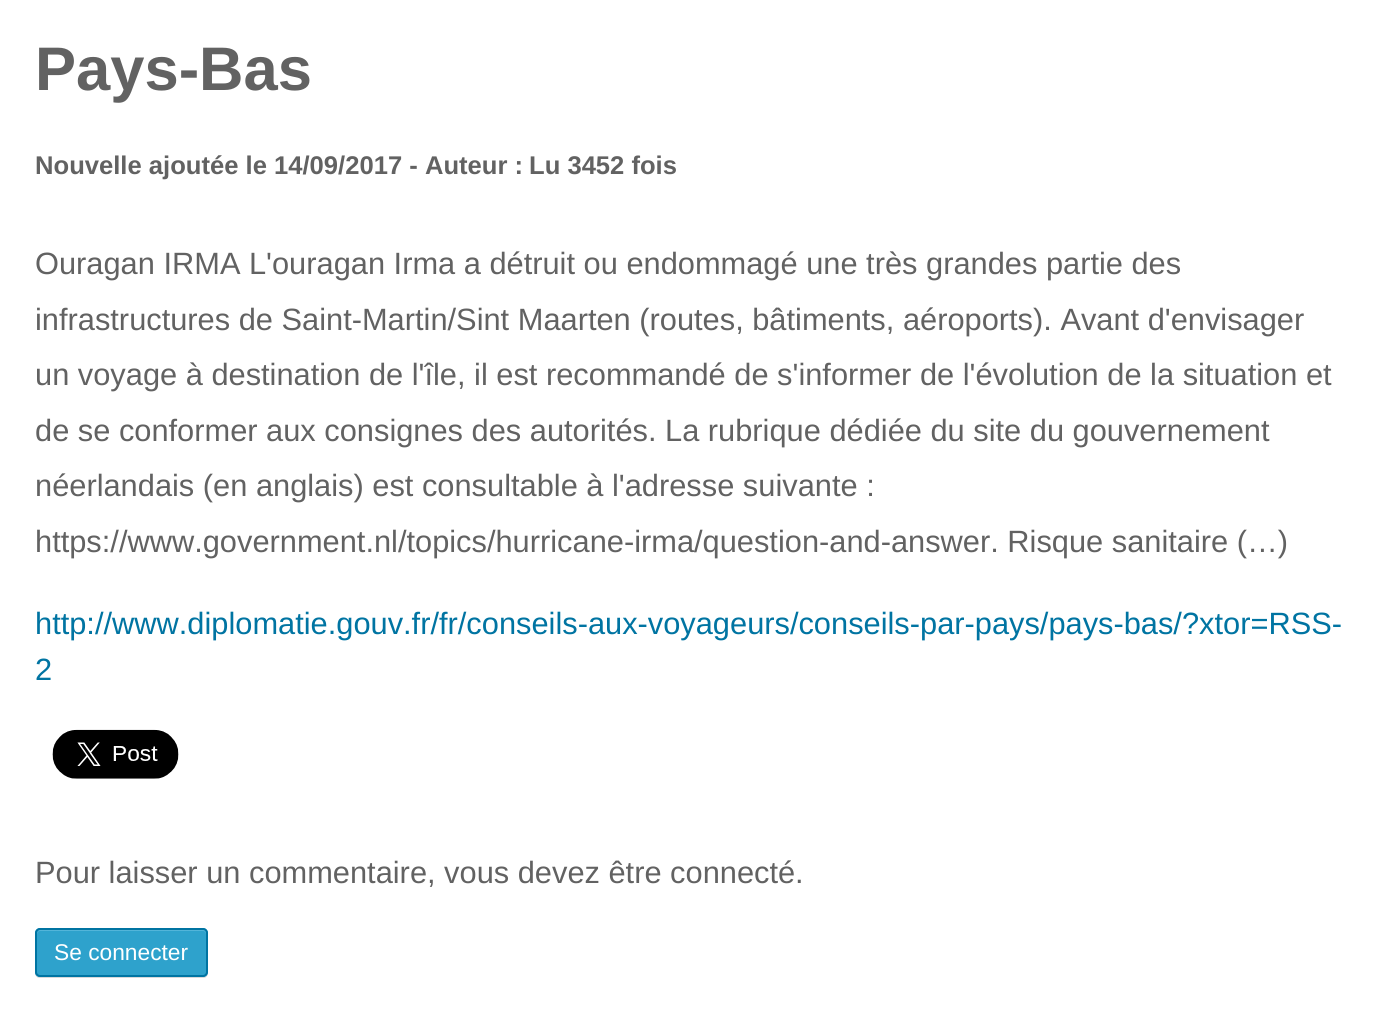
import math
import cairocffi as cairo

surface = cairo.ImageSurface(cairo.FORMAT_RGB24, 1380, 1033)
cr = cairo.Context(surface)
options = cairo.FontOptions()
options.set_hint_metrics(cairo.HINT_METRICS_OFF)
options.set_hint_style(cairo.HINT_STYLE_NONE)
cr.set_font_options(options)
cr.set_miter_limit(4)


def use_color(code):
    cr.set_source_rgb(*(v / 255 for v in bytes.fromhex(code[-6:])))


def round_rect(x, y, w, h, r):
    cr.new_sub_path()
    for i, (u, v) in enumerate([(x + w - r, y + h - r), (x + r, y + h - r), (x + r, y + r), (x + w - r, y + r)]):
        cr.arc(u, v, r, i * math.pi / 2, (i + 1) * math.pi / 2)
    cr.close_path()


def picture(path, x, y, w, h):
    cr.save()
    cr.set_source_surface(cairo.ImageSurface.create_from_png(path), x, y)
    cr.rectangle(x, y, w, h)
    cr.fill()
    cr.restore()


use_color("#ffffff")
cr.paint()
cr.select_font_face("Liberation Sans", cairo.FONT_SLANT_NORMAL, cairo.FONT_WEIGHT_BOLD)
cr.set_font_size(61.5)
use_color("#626262")
cr.move_to(35, 90)
cr.show_text("Pays-Bas")
cr.set_font_size(25.6)
cr.move_to(35, 174)
cr.show_text("Nouvelle ajoutée le 14/09/2017 - Auteur :")
cr.move_to(529, 174)
cr.show_text("Lu 3452 fois")
cr.select_font_face("Liberation Sans")
cr.set_font_size(30.8)
cr.move_to(35, 274)
cr.show_text("Ouragan IRMA L'ouragan Irma a détruit ou endommagé une très grandes partie des")
cr.move_to(35, 330)
cr.show_text("infrastructures de Saint-Martin/Sint Maarten (routes, bâtiments, aéroports). Avant d'envisager")
cr.move_to(35, 385)
cr.show_text("un voyage à destination de l'île, il est recommandé de s'informer de l'évolution de la situation et")
cr.move_to(35, 441)
cr.show_text("de se conformer aux consignes des autorités. La rubrique dédiée du site du gouvernement")
cr.move_to(35, 496)
cr.show_text("néerlandais (en anglais) est consultable à l'adresse suivante :")
cr.move_to(35, 552)
cr.show_text("https://www.government.nl/topics/hurricane-irma/question-and-answer. Risque sanitaire (…)")
use_color("#0074a2")
cr.move_to(35, 634)
cr.show_text("http://www.diplomatie.gouv.fr/fr/conseils-aux-voyageurs/conseils-par-pays/pays-bas/?xtor=RSS-")
cr.move_to(35, 680)
cr.show_text("2")
picture("img1.png", 52, 729, 127, 50)
use_color("#626262")
cr.move_to(35, 883)
cr.show_text("Pour laisser un commentaire, vous devez être connecté.")
use_color("#d9d9d9")
cr.new_path()
cr.move_to(35, 971)
cr.line_to(35, 973)
cr.curve_to(35, 976, 37, 978, 40, 978)
cr.line_to(203, 978)
cr.curve_to(206, 978, 208, 976, 208, 973)
cr.curve_to(207, 975, 205, 976, 203, 976)
cr.line_to(40, 976)
cr.curve_to(37, 976, 35, 974, 35, 971)
cr.close_path()
cr.fill()
use_color("#2ea2cc")
round_rect(35, 928, 173, 49, 5)
cr.fill()
use_color("#53b5d9")
cr.new_path()
cr.move_to(40, 931)
cr.line_to(203, 931)
cr.curve_to(205, 931, 206, 933, 206, 934)
cr.line_to(206, 974)
cr.curve_to(207, 973, 207, 972, 207, 971)
cr.line_to(207, 933)
cr.curve_to(207, 931, 205, 929, 203, 929)
cr.line_to(41, 929)
cr.curve_to(39, 929, 37, 931, 37, 933)
cr.line_to(37, 934)
cr.curve_to(37, 933, 38, 931, 40, 931)
cr.close_path()
cr.fill()
round_rect(36, 929, 171, 47, 4)
use_color("#0074a2")
cr.stroke()
cr.set_font_size(22.75)
use_color("#ffffff")
cr.move_to(54, 960)
cr.show_text("Se connecter")
surface.write_to_png("result.png")
